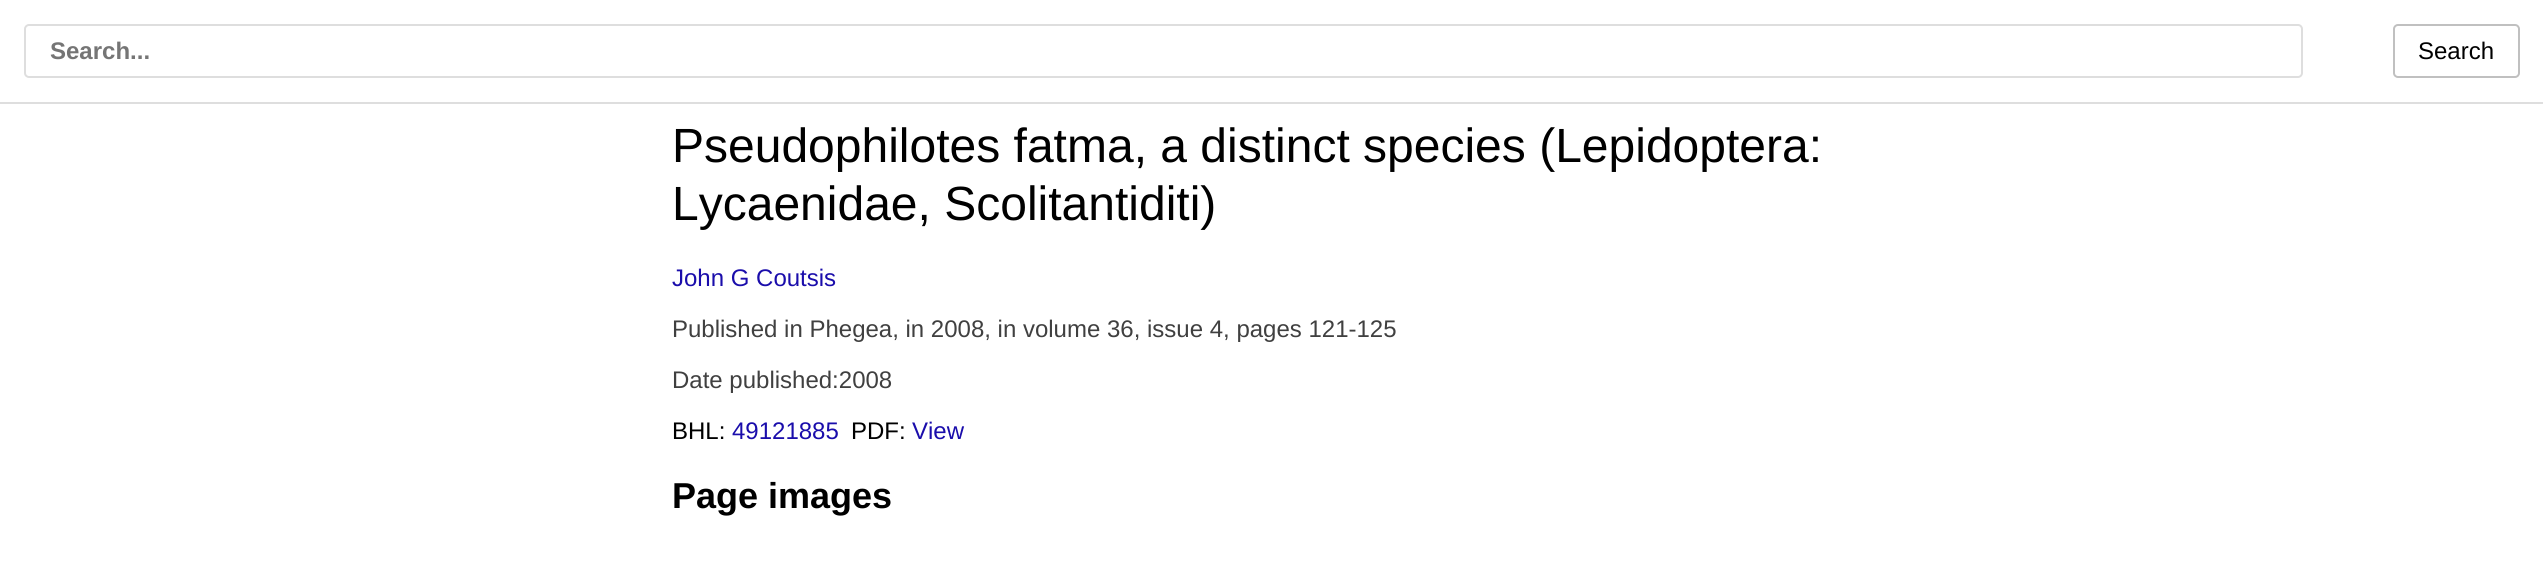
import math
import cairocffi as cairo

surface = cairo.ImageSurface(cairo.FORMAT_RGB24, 2543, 564)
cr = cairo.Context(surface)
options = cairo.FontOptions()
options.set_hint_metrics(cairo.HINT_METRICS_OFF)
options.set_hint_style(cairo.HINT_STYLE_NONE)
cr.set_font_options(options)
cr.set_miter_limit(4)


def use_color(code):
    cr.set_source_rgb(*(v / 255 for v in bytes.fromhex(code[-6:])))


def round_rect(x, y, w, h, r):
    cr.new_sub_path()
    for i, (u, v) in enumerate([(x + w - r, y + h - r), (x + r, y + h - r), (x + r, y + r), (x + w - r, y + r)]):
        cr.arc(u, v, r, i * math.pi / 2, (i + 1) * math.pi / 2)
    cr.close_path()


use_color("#ffffff")
cr.paint()
use_color("#dedede")
cr.rectangle(0, 102, 2543, 2)
cr.fill()
round_rect(25, 25, 2277, 52, 4)
cr.stroke()
cr.select_font_face("Liberation Sans", cairo.FONT_SLANT_NORMAL, cairo.FONT_WEIGHT_BOLD)
cr.set_font_size(24)
use_color("#757575")
cr.move_to(50, 59)
cr.show_text("Search...")
round_rect(2394, 25, 125, 52, 4)
use_color("#c0c0c0")
cr.stroke()
cr.select_font_face("Liberation Sans")
use_color("#000000")
cr.move_to(2418, 59)
cr.show_text("Search")
cr.set_font_size(48)
cr.move_to(672, 162)
cr.show_text("Pseudophilotes fatma, a distinct species (Lepidoptera:")
cr.move_to(672, 220)
cr.show_text("Lycaenidae, Scolitantiditi)")
cr.set_font_size(24)
use_color("#1a0dab")
cr.move_to(672, 286)
cr.show_text("John G Coutsis")
use_color("#404040")
cr.move_to(672, 337)
cr.show_text("Published in Phegea, in 2008, in volume 36, issue 4, pages 121-125")
cr.move_to(672, 388)
cr.show_text("Date published:2008")
use_color("#000000")
cr.move_to(672, 439)
cr.show_text("BHL:")
use_color("#1a0dab")
cr.move_to(732, 439)
cr.show_text("49121885")
use_color("#000000")
cr.move_to(851, 439)
cr.show_text("PDF:")
use_color("#1a0dab")
cr.move_to(912, 439)
cr.show_text("View")
cr.select_font_face("Liberation Sans", cairo.FONT_SLANT_NORMAL, cairo.FONT_WEIGHT_BOLD)
cr.set_font_size(36)
use_color("#000000")
cr.move_to(672, 508)
cr.show_text("Page images")
surface.write_to_png("result.png")
